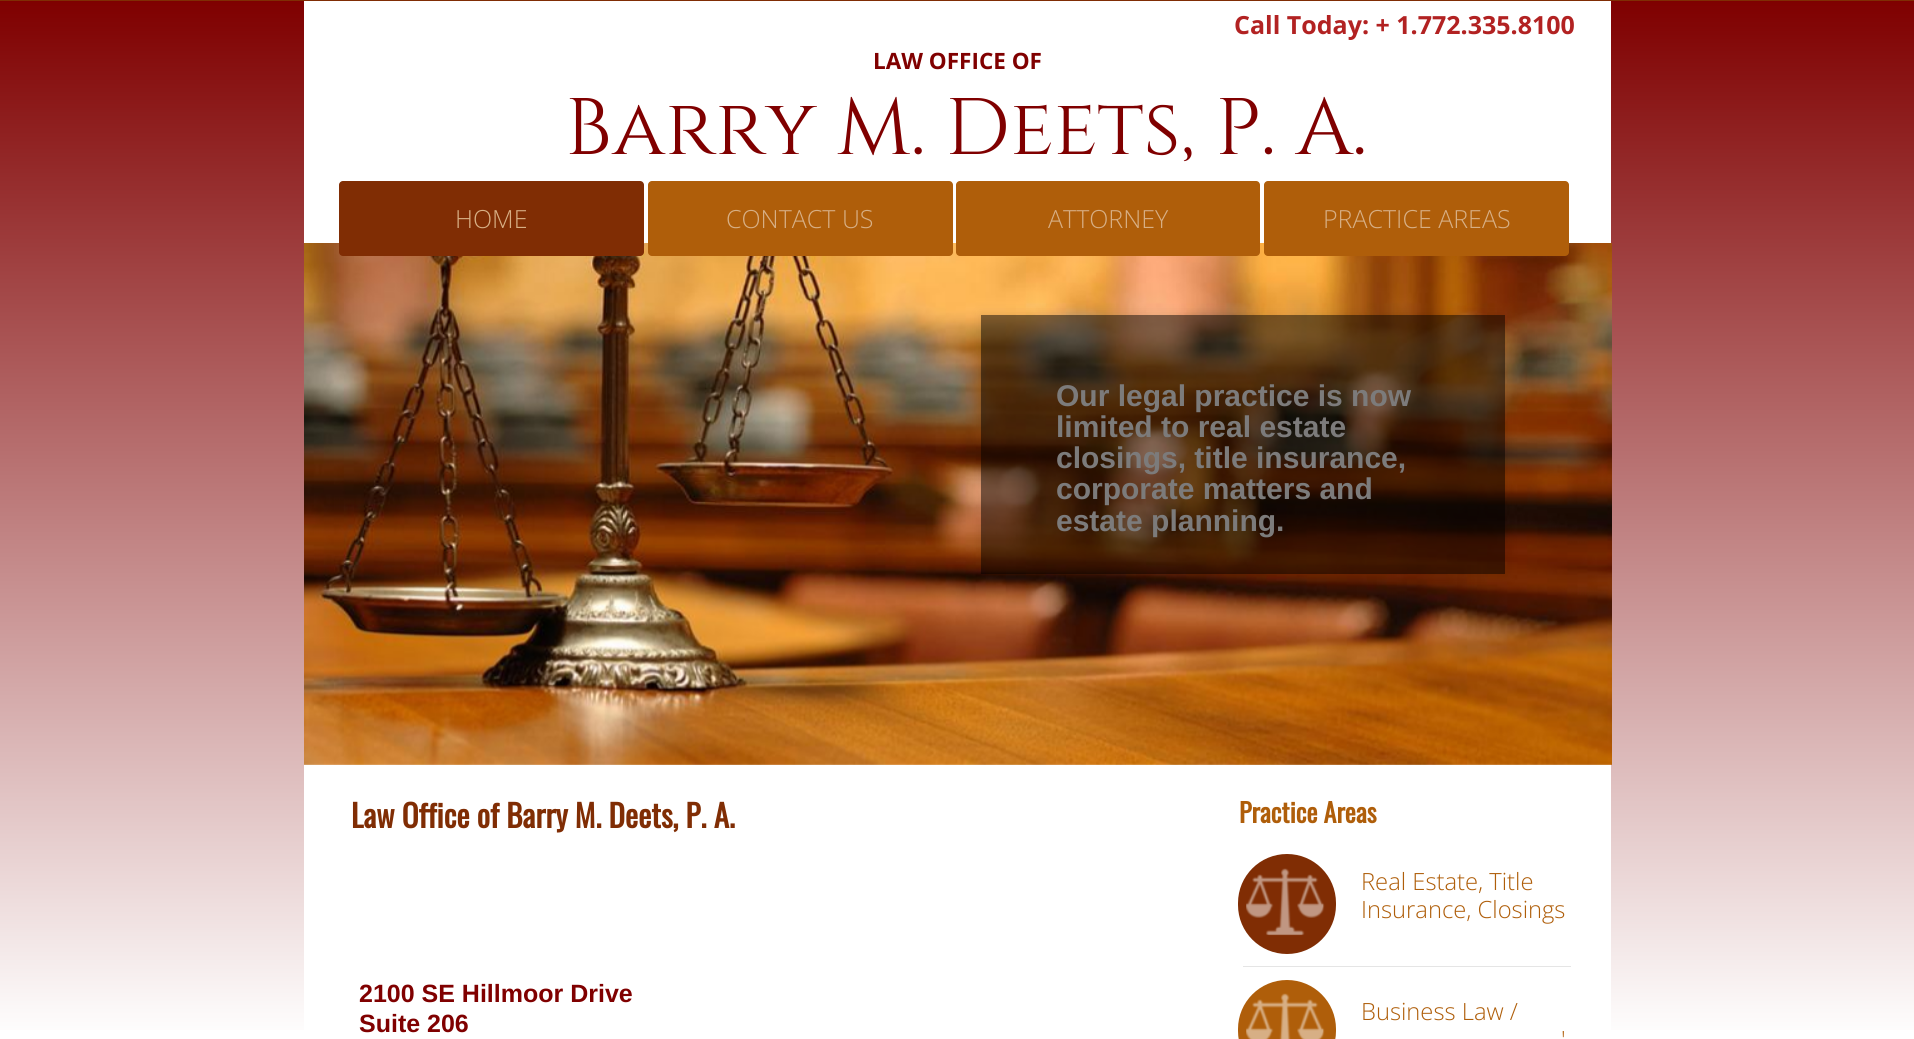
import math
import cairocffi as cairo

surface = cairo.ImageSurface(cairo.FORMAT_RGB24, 1914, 1039)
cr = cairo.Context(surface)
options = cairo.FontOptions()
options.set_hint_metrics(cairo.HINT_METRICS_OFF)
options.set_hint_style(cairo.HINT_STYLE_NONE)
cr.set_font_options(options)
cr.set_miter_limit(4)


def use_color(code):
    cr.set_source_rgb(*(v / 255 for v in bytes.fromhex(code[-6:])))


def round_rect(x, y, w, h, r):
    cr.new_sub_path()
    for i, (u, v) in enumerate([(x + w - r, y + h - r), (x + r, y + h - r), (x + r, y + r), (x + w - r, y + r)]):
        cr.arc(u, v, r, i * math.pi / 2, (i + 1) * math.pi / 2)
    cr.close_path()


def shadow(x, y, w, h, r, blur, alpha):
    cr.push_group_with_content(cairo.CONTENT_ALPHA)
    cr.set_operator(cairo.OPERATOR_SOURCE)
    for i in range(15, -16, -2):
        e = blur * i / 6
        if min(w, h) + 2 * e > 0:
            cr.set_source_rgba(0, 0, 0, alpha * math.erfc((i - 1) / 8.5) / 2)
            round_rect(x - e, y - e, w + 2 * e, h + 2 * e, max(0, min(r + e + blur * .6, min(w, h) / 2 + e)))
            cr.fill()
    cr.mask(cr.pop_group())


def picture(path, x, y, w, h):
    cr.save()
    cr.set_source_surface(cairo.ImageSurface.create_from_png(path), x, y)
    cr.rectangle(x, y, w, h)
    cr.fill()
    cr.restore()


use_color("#ffffff")
cr.paint()
gradient = cairo.LinearGradient(958, 0, 958, 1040)
gradient.add_color_stop_rgba(0, 0.498, 0, 0, 1)
gradient.add_color_stop_rgba(1, 1, 1, 1, 1)
cr.set_source(gradient)
cr.rectangle(0, 1, 1914, 1029)
cr.fill()
use_color("#ffffff")
cr.rectangle(304, 1, 1307, 1029)
cr.fill()
use_color("#802d04")
cr.rectangle(0, 0, 1914, 1)
cr.fill()
cr.select_font_face("Open Sans", cairo.FONT_SLANT_NORMAL, cairo.FONT_WEIGHT_BOLD)
cr.set_font_size(25)
use_color("#b22222")
cr.move_to(1234, 34)
cr.show_text("Call Today: + 1.772.335.8100")
cr.set_font_size(22.5)
use_color("#800000")
cr.move_to(873, 69)
cr.show_text("LAW OFFICE OF")
cr.select_font_face("Cinzel")
cr.set_font_size(80)
cr.move_to(565, 154)
cr.show_text("Barry M. Deets, P. A.")
picture("img1.png", 304, 243, 1308, 522)
use_color("#802d04")
round_rect(339, 181, 305, 75, 4)
cr.fill()
cr.select_font_face("Open Sans Light")
cr.set_font_size(25)
use_color("#d7af85")
cr.move_to(455, 228)
cr.show_text("HOME")
use_color("#af5e0a")
round_rect(648, 181, 305, 75, 4)
cr.fill()
use_color("#d7af85")
cr.move_to(726, 228)
cr.show_text("CONTACT US")
use_color("#af5e0a")
round_rect(956, 181, 304, 75, 4)
cr.fill()
use_color("#d7af85")
cr.move_to(1048, 228)
cr.show_text("ATTORNEY")
use_color("#af5e0a")
round_rect(1264, 181, 305, 75, 4)
cr.fill()
use_color("#d7af85")
cr.move_to(1323, 228)
cr.show_text("PRACTICE AREAS")
cr.save()
cr.set_fill_rule(cairo.FILL_RULE_EVEN_ODD)
cr.new_path()
cr.move_to(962, 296)
cr.line_to(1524, 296)
cr.line_to(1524, 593)
cr.line_to(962, 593)
cr.close_path()
cr.move_to(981, 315)
cr.line_to(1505, 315)
cr.line_to(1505, 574)
cr.line_to(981, 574)
cr.close_path()
cr.clip()
use_color("#000000")
shadow(981, 315, 524, 259, 0, 6, 0.1)
cr.restore()
cr.set_source_rgba(0, 0, 0, 0.5)
cr.rectangle(981, 315, 524, 259)
cr.fill()
cr.select_font_face("Liberation Sans", cairo.FONT_SLANT_NORMAL, cairo.FONT_WEIGHT_BOLD)
cr.set_font_size(30)
use_color("#7c7b7b")
cr.move_to(1056, 406)
cr.show_text("Our legal practice is now")
cr.move_to(1056, 437)
cr.show_text("limited to real estate")
cr.move_to(1056, 468)
cr.show_text("closings, title insurance,")
cr.move_to(1056, 499)
cr.show_text("corporate matters and")
cr.move_to(1056, 531)
cr.show_text("estate planning.")
cr.select_font_face("Oswald", cairo.FONT_SLANT_NORMAL, cairo.FONT_WEIGHT_BOLD)
cr.set_font_size(31.25)
use_color("#802d04")
cr.move_to(351, 828)
cr.show_text("Law Office of Barry M. Deets, P. A.")
cr.set_font_size(26.25)
use_color("#af5e0a")
cr.move_to(1239, 823)
cr.show_text("Practice Areas")
use_color("#802d04")
round_rect(1238, 854, 98, 100, 49)
cr.fill()
picture("img2.png", 1246, 868, 79, 68)
cr.select_font_face("Open Sans Light")
cr.set_font_size(23.75)
use_color("#af5e0a")
cr.move_to(1361, 890)
cr.show_text("Real Estate, Title")
cr.move_to(1361, 918)
cr.show_text("Insurance, Closings")
use_color("#e5e5e5")
cr.rectangle(1243, 966, 328, 1)
cr.fill()
cr.select_font_face("Liberation Sans", cairo.FONT_SLANT_NORMAL, cairo.FONT_WEIGHT_BOLD)
cr.set_font_size(25)
use_color("#800000")
cr.move_to(359, 1002)
cr.show_text("2100 SE Hillmoor Drive")
cr.move_to(359, 1032)
cr.show_text("Suite 206")
use_color("#af5e0a")
round_rect(1238, 980, 98, 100, 49)
cr.fill()
picture("img3.png", 1246, 993, 79, 46)
cr.select_font_face("Open Sans Light")
cr.set_font_size(23.75)
cr.move_to(1361, 1020)
cr.show_text("Business Law /")
cr.move_to(1561, 1048)
cr.show_text("'")
surface.write_to_png("result.png")
